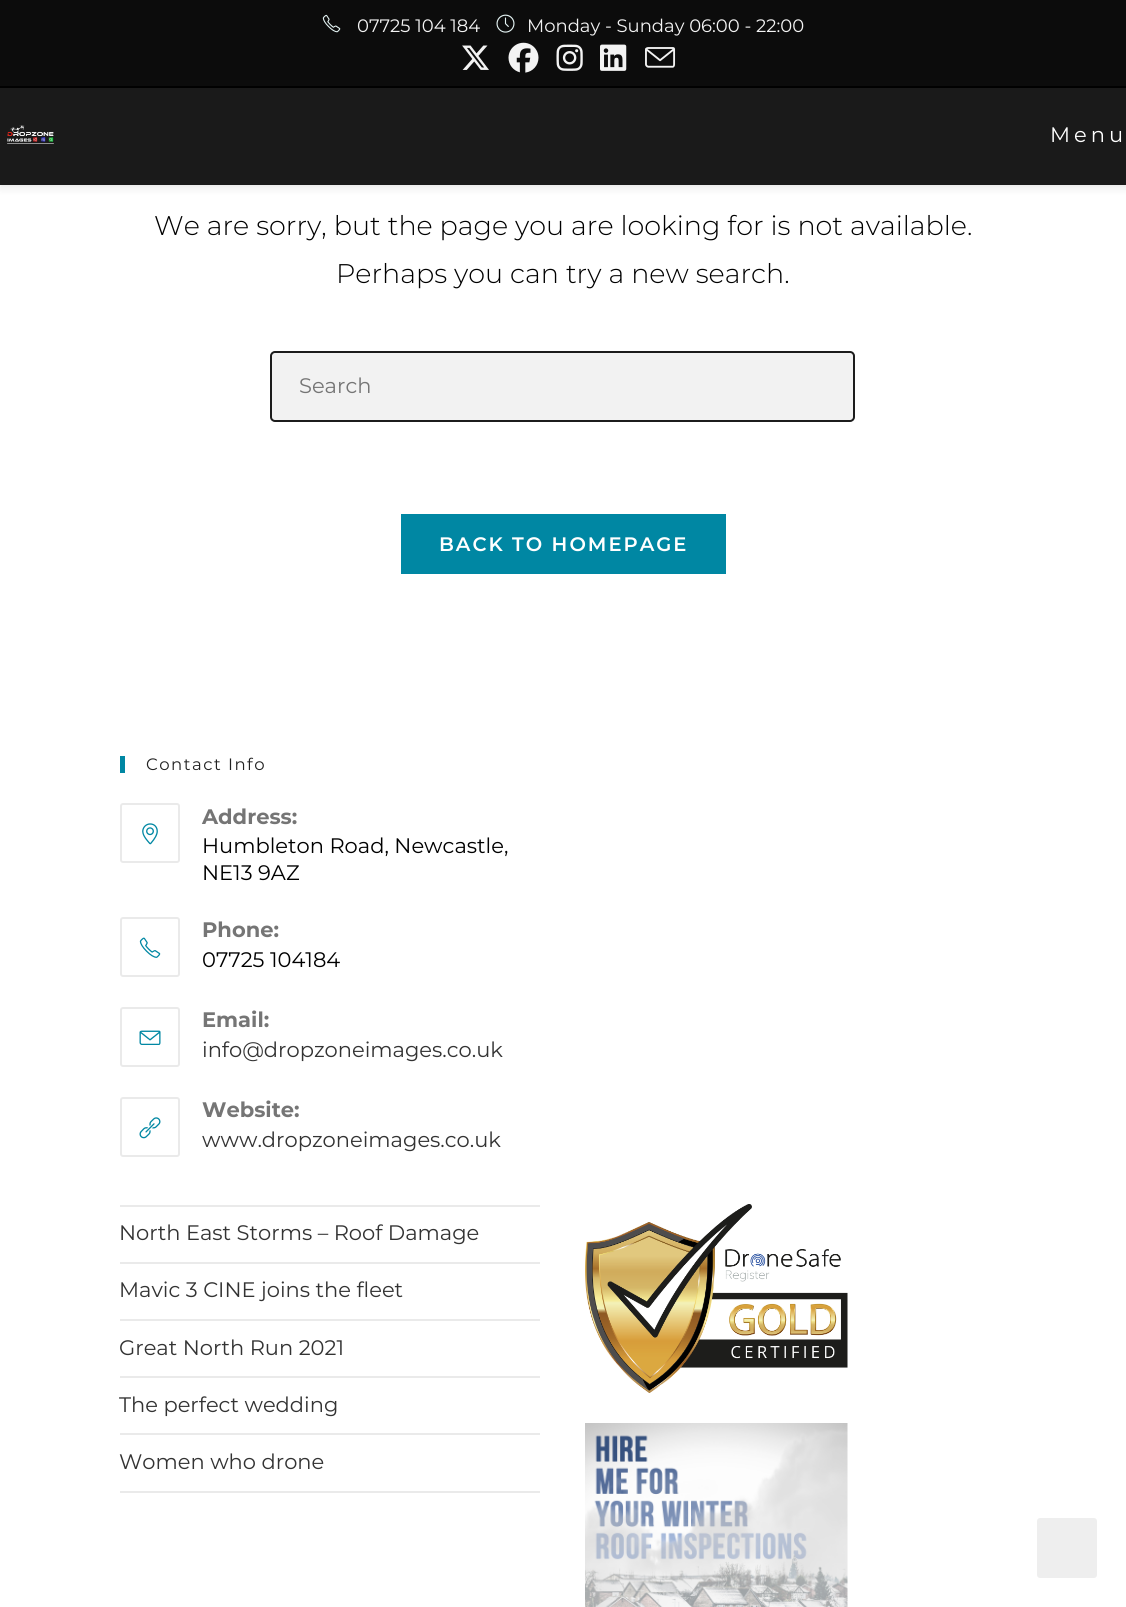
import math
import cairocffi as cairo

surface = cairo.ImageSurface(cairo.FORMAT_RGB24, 1126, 1607)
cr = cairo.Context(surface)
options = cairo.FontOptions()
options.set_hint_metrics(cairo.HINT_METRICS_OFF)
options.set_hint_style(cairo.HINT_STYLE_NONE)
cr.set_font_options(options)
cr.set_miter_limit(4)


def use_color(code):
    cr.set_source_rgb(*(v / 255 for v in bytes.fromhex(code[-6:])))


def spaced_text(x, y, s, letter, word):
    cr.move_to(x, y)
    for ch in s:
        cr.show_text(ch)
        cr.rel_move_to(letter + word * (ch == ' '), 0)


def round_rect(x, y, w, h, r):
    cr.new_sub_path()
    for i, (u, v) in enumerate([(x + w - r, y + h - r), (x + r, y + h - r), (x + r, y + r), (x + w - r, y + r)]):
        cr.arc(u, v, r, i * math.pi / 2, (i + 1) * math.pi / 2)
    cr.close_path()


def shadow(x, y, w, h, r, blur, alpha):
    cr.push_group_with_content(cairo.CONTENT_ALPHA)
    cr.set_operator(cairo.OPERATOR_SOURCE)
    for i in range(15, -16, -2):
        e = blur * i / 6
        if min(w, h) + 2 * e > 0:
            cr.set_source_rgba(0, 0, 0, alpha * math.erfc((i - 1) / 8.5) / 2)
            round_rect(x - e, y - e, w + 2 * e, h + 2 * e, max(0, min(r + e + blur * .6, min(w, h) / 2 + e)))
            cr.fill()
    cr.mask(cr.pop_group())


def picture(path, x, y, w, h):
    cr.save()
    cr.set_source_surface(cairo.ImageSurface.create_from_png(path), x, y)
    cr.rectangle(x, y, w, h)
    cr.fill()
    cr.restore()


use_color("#ffffff")
cr.paint()
cr.save()
cr.set_fill_rule(cairo.FILL_RULE_EVEN_ODD)
cr.new_path()
cr.move_to(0, 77)
cr.line_to(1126, 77)
cr.line_to(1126, 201)
cr.line_to(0, 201)
cr.close_path()
cr.move_to(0, 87)
cr.line_to(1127, 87)
cr.line_to(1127, 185)
cr.line_to(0, 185)
cr.close_path()
cr.clip()
use_color("#0d0d0d")
shadow(0, 90, 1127, 98, 0, 4, 0.1)
cr.restore()
cr.set_source_rgba(0, 0, 0, 0.95)
cr.rectangle(0, 0, 1126, 87)
cr.fill()
cr.set_source_rgba(0.059, 0.059, 0.059, 0.95)
cr.rectangle(0, 87, 1126, 98)
cr.fill()
cr.set_source_rgba(0, 0, 0, 0.95)
cr.rectangle(0, 86, 1126, 2)
cr.fill()
picture("img1.png", 322, 14, 19, 19)
cr.select_font_face("Montserrat")
cr.set_font_size(18)
use_color("#f3f3f3")
cr.move_to(357, 32)
cr.show_text("07725 104 184")
picture("img2.png", 496, 14, 19, 19)
cr.move_to(527, 32)
cr.show_text("Monday - Sunday 06:00 - 22:00")
picture("img3.png", 462, 45, 27, 25)
picture("img4.png", 508, 42, 31, 31)
picture("img5.png", 556, 44, 27, 27)
picture("img6.png", 600, 44, 27, 27)
picture("img7.png", 645, 47, 31, 21)
picture("img8.png", 7, 125, 47, 19)
cr.set_font_size(21)
use_color("#ffffff")
spaced_text(1050, 142, "Menu", 4, 0)
cr.select_font_face("Montserrat Light")
cr.set_font_size(27)
use_color("#000000")
cr.move_to(154, 235)
cr.show_text("We are sorry, but the page you are looking for is not available.")
cr.move_to(336, 283)
cr.show_text("Perhaps you can try a new search.")
use_color("#f2f2f2")
round_rect(271, 352, 583, 69, 4)
cr.fill_preserve()
use_color("#1c1c1c")
cr.stroke()
cr.select_font_face("Montserrat")
cr.set_font_size(21)
use_color("#757575")
cr.move_to(299, 393)
cr.show_text("Search")
use_color("#0087a3")
cr.rectangle(401, 514, 325, 60)
cr.fill()
cr.select_font_face("Montserrat SemiBold")
cr.set_font_size(19.5)
use_color("#ffffff")
spaced_text(439, 551, "BACK TO HOMEPAGE", 2, 0)
use_color("#0087a3")
cr.rectangle(120, 756, 5, 17)
cr.fill()
cr.select_font_face("Montserrat")
cr.set_font_size(16.5)
use_color("#222222")
spaced_text(146, 770, "Contact Info", 1.5, 0)
round_rect(121, 804, 58, 58, 2)
use_color("#eaeaea")
cr.stroke()
picture("img9.png", 142, 823, 16, 22)
cr.select_font_face("Montserrat", cairo.FONT_SLANT_NORMAL, cairo.FONT_WEIGHT_BOLD)
cr.set_font_size(21)
use_color("#757575")
cr.move_to(202, 824)
cr.show_text("Address:")
cr.select_font_face("Montserrat")
use_color("#000000")
cr.move_to(202, 853)
cr.show_text("Humbleton Road, Newcastle,")
cr.move_to(202, 880)
cr.show_text("NE13 9AZ")
round_rect(121, 918, 58, 58, 2)
use_color("#eaeaea")
cr.stroke()
picture("img10.png", 139, 937, 22, 21)
cr.select_font_face("Montserrat", cairo.FONT_SLANT_NORMAL, cairo.FONT_WEIGHT_BOLD)
use_color("#757575")
cr.move_to(202, 937)
cr.show_text("Phone:")
cr.select_font_face("Montserrat")
use_color("#000000")
cr.move_to(202, 967)
cr.show_text("07725 104184")
round_rect(121, 1008, 58, 58, 2)
use_color("#eaeaea")
cr.stroke()
picture("img11.png", 139, 1030, 22, 15)
cr.select_font_face("Montserrat", cairo.FONT_SLANT_NORMAL, cairo.FONT_WEIGHT_BOLD)
use_color("#757575")
cr.move_to(202, 1027)
cr.show_text("Email:")
cr.select_font_face("Montserrat")
use_color("#333333")
cr.move_to(202, 1057)
cr.show_text("info@dropzoneimages.co.uk")
round_rect(121, 1098, 58, 58, 2)
use_color("#eaeaea")
cr.stroke()
picture("img12.png", 139, 1117, 22, 22)
cr.select_font_face("Montserrat", cairo.FONT_SLANT_NORMAL, cairo.FONT_WEIGHT_BOLD)
use_color("#757575")
cr.move_to(202, 1117)
cr.show_text("Website:")
cr.select_font_face("Montserrat")
use_color("#333333")
cr.move_to(202, 1147)
cr.show_text("www.dropzoneimages.co.uk")
use_color("#eaeaea")
cr.rectangle(120, 1205, 420, 2)
cr.fill()
cr.rectangle(120, 1262, 420, 2)
cr.fill()
use_color("#333333")
cr.move_to(119, 1240)
cr.show_text("North East Storms – Roof Damage")
use_color("#eaeaea")
cr.rectangle(120, 1319, 420, 2)
cr.fill()
use_color("#333333")
cr.move_to(119, 1297)
cr.show_text("Mavic 3 CINE joins the fleet")
use_color("#eaeaea")
cr.rectangle(120, 1376, 420, 2)
cr.fill()
use_color("#333333")
cr.move_to(119, 1355)
cr.show_text("Great North Run 2021")
use_color("#eaeaea")
cr.rectangle(120, 1433, 420, 2)
cr.fill()
use_color("#333333")
cr.move_to(119, 1412)
cr.show_text("The perfect wedding")
use_color("#eaeaea")
cr.rectangle(120, 1491, 420, 2)
cr.fill()
use_color("#333333")
cr.move_to(119, 1469)
cr.show_text("Women who drone")
picture("img13.png", 585, 1204, 263, 189)
picture("img14.png", 585, 1423, 263, 184)
use_color("#eeeeee")
round_rect(1037, 1518, 60, 60, 3)
cr.fill()
surface.write_to_png("result.png")
